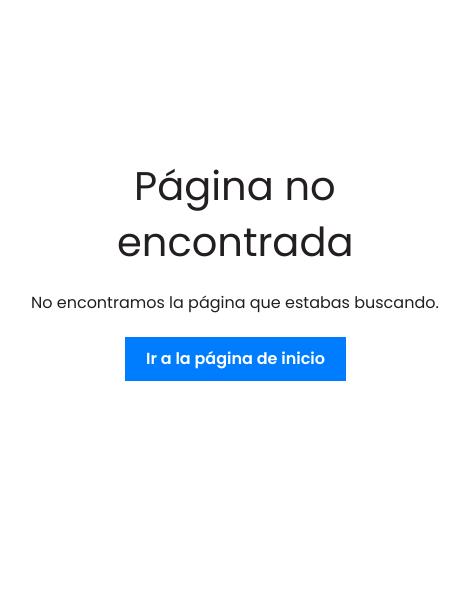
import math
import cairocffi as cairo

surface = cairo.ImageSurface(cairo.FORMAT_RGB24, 470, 600)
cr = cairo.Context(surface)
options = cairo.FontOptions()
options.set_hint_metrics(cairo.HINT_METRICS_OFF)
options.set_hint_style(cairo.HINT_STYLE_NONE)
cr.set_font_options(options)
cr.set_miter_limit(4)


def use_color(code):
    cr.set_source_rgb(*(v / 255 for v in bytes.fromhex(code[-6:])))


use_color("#ffffff")
cr.paint()
cr.select_font_face("Poppins")
cr.set_font_size(40)
use_color("#231f20")
cr.move_to(134, 200)
cr.show_text("Página no")
cr.move_to(117, 256)
cr.show_text("encontrada")
cr.set_font_size(16)
cr.move_to(31, 308)
cr.show_text("No encontramos la página que estabas buscando.")
use_color("#007dff")
cr.rectangle(125, 337, 221, 44)
cr.fill()
cr.select_font_face("Poppins SemiBold")
use_color("#ffffff")
cr.move_to(146, 364)
cr.show_text("Ir a la página de inicio")
surface.write_to_png("result.png")
